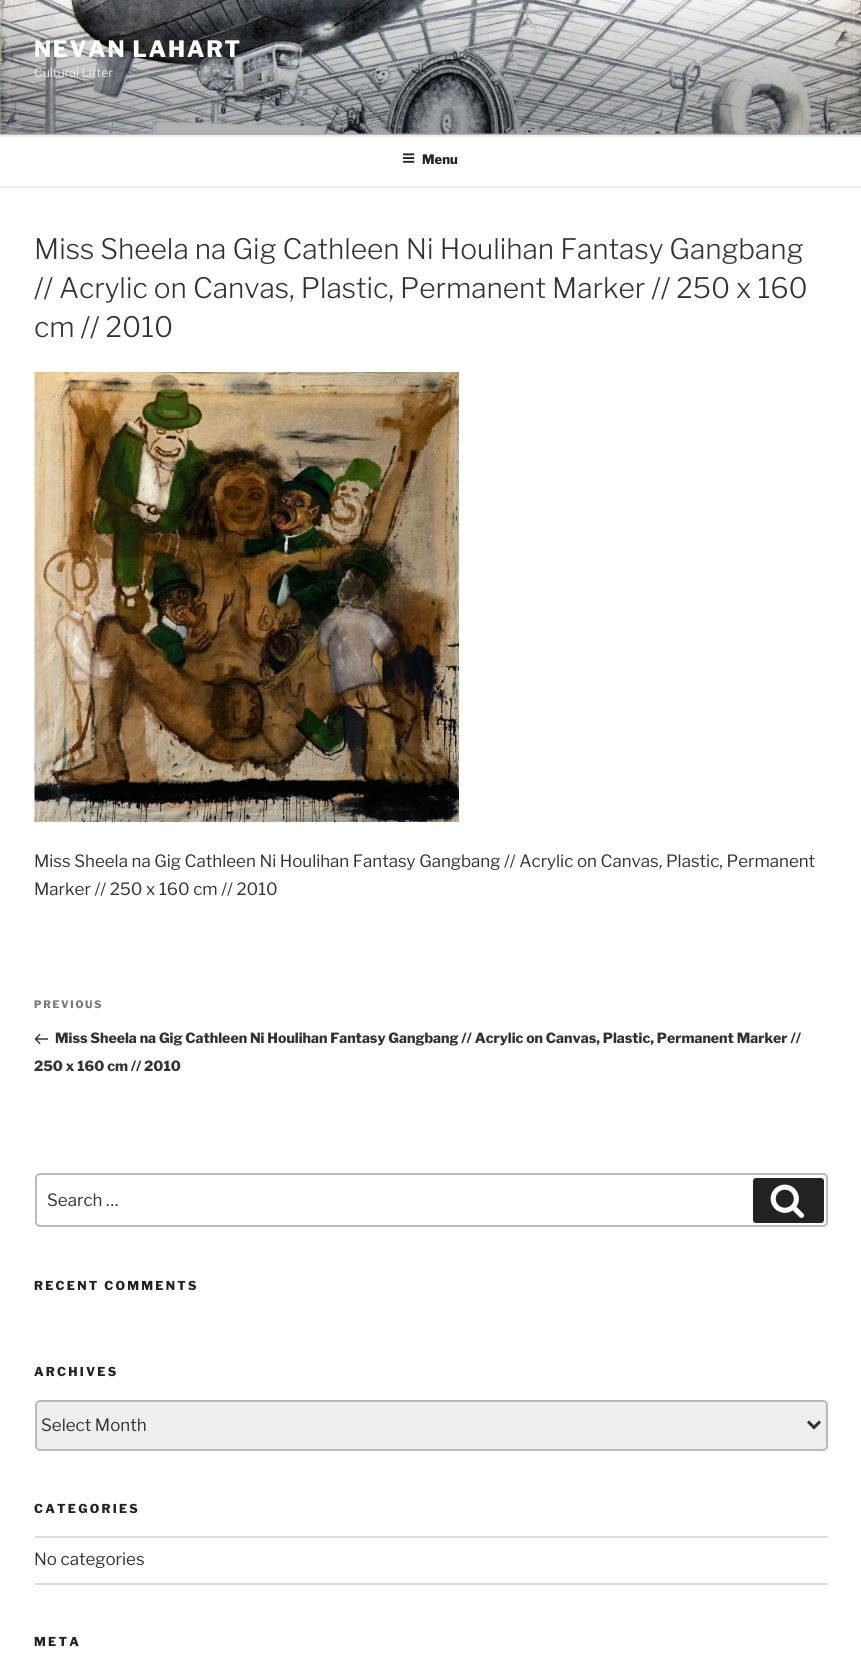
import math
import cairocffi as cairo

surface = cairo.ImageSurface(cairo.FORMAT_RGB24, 861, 1670)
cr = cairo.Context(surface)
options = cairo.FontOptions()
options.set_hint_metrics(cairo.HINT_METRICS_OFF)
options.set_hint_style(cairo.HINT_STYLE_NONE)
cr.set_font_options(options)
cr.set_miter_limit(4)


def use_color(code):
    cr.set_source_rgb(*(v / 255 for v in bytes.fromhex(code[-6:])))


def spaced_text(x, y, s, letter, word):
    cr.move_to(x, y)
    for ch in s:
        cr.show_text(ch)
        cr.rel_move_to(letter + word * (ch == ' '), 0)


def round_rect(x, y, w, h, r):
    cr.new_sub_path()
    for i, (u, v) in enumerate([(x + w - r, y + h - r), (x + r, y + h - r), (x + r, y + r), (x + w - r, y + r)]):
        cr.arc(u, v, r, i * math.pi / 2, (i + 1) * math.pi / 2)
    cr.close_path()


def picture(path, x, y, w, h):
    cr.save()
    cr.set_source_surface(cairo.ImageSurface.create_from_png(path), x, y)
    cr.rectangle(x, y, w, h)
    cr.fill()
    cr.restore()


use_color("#ffffff")
cr.paint()
use_color("#fafafa")
cr.rectangle(0, 133, 861, 2)
cr.fill()
picture("img1.png", 0, 0, 861, 134)
gradient = cairo.LinearGradient(431, -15, 431, 135)
gradient.add_color_stop_rgba(0, 0, 0, 0, 0)
gradient.add_color_stop_rgba(0.75, 0, 0, 0, 0.3)
gradient.add_color_stop_rgba(1, 0, 0, 0, 0.3)
cr.set_source(gradient)
cr.rectangle(0, 0, 861, 135)
cr.fill()
cr.select_font_face("Libre Franklin ExtraBold")
cr.set_font_size(22.5)
use_color("#ffffff")
spaced_text(34, 57, "NEVAN LAHART", 1.75, 0)
cr.select_font_face("Libre Franklin")
cr.set_font_size(12.25)
use_color("#ebecec")
cr.move_to(34, 77)
cr.show_text("Cultural Litter")
use_color("#eeeeee")
cr.rectangle(0, 135, 861, 2)
cr.fill()
cr.rectangle(0, 186, 861, 2)
cr.fill()
picture("img2.png", 403, 153, 12, 10)
cr.select_font_face("Libre Franklin ExtraBold")
cr.set_font_size(13)
use_color("#222222")
cr.move_to(422, 164)
cr.show_text("Menu")
cr.select_font_face("Libre Franklin Light")
cr.set_font_size(28.1)
use_color("#333333")
cr.move_to(34, 259)
cr.show_text("Miss Sheela na Gig Cathleen Ni Houlihan Fantasy Gangbang")
cr.move_to(34, 298)
cr.show_text("// Acrylic on Canvas, Plastic, Permanent Marker // 250 x 160")
cr.move_to(34, 337)
cr.show_text("cm // 2010")
picture("img3.png", 34, 372, 425, 450)
cr.select_font_face("Libre Franklin")
cr.set_font_size(16.9)
cr.move_to(34, 867)
cr.show_text("Miss Sheela na Gig Cathleen Ni Houlihan Fantasy Gangbang // Acrylic on Canvas, Plastic, Permanent")
cr.move_to(34, 895)
cr.show_text("Marker // 250 x 160 cm // 2010")
cr.select_font_face("Libre Franklin ExtraBold")
cr.set_font_size(10.25)
use_color("#767676")
spaced_text(34, 1008, "PREVIOUS", 1.75, 0)
picture("img4.png", 35, 1033, 13, 12)
cr.set_font_size(14.05)
use_color("#333333")
cr.move_to(55, 1043)
cr.show_text("Miss Sheela na Gig Cathleen Ni Houlihan Fantasy Gangbang // Acrylic on Canvas, Plastic, Permanent Marker //")
cr.move_to(34, 1071)
cr.show_text("250 x 160 cm // 2010")
round_rect(36, 1174, 791, 52, 4)
use_color("#bbbbbb")
cr.stroke()
cr.select_font_face("Libre Franklin")
cr.set_font_size(16.9)
use_color("#333333")
cr.move_to(47, 1206)
cr.show_text("Search …")
use_color("#222222")
round_rect(753, 1178, 71, 45, 3)
cr.fill()
picture("img5.png", 770, 1184, 34, 34)
cr.select_font_face("Libre Franklin ExtraBold")
cr.set_font_size(12.25)
spaced_text(34, 1290, "RECENT COMMENTS", 2.25, 0)
spaced_text(34, 1376, "ARCHIVES", 2.25, 0)
use_color("#efefef")
round_rect(36, 1401, 791, 49, 4)
cr.fill_preserve()
use_color("#bbbbbb")
cr.stroke()
cr.new_path()
cr.move_to(808, 1421.5)
cr.line_to(814, 1427.5)
cr.line_to(820, 1421.5)
use_color("#333333")
cr.set_line_width(3)
cr.stroke()
cr.select_font_face("Libre Franklin")
cr.set_font_size(16.9)
cr.move_to(41, 1431)
cr.show_text("Select Month")
cr.select_font_face("Libre Franklin ExtraBold")
cr.set_font_size(12.25)
use_color("#222222")
spaced_text(34, 1513, "CATEGORIES", 2.25, 0)
use_color("#dddddd")
cr.rectangle(35, 1536, 793, 2)
cr.fill()
cr.rectangle(35, 1583, 793, 2)
cr.fill()
cr.select_font_face("Libre Franklin")
cr.set_font_size(16.9)
use_color("#333333")
cr.move_to(34, 1565)
cr.show_text("No categories")
cr.select_font_face("Libre Franklin ExtraBold")
cr.set_font_size(12.25)
use_color("#222222")
spaced_text(34, 1646, "META", 2.25, 0)
surface.write_to_png("result.png")
